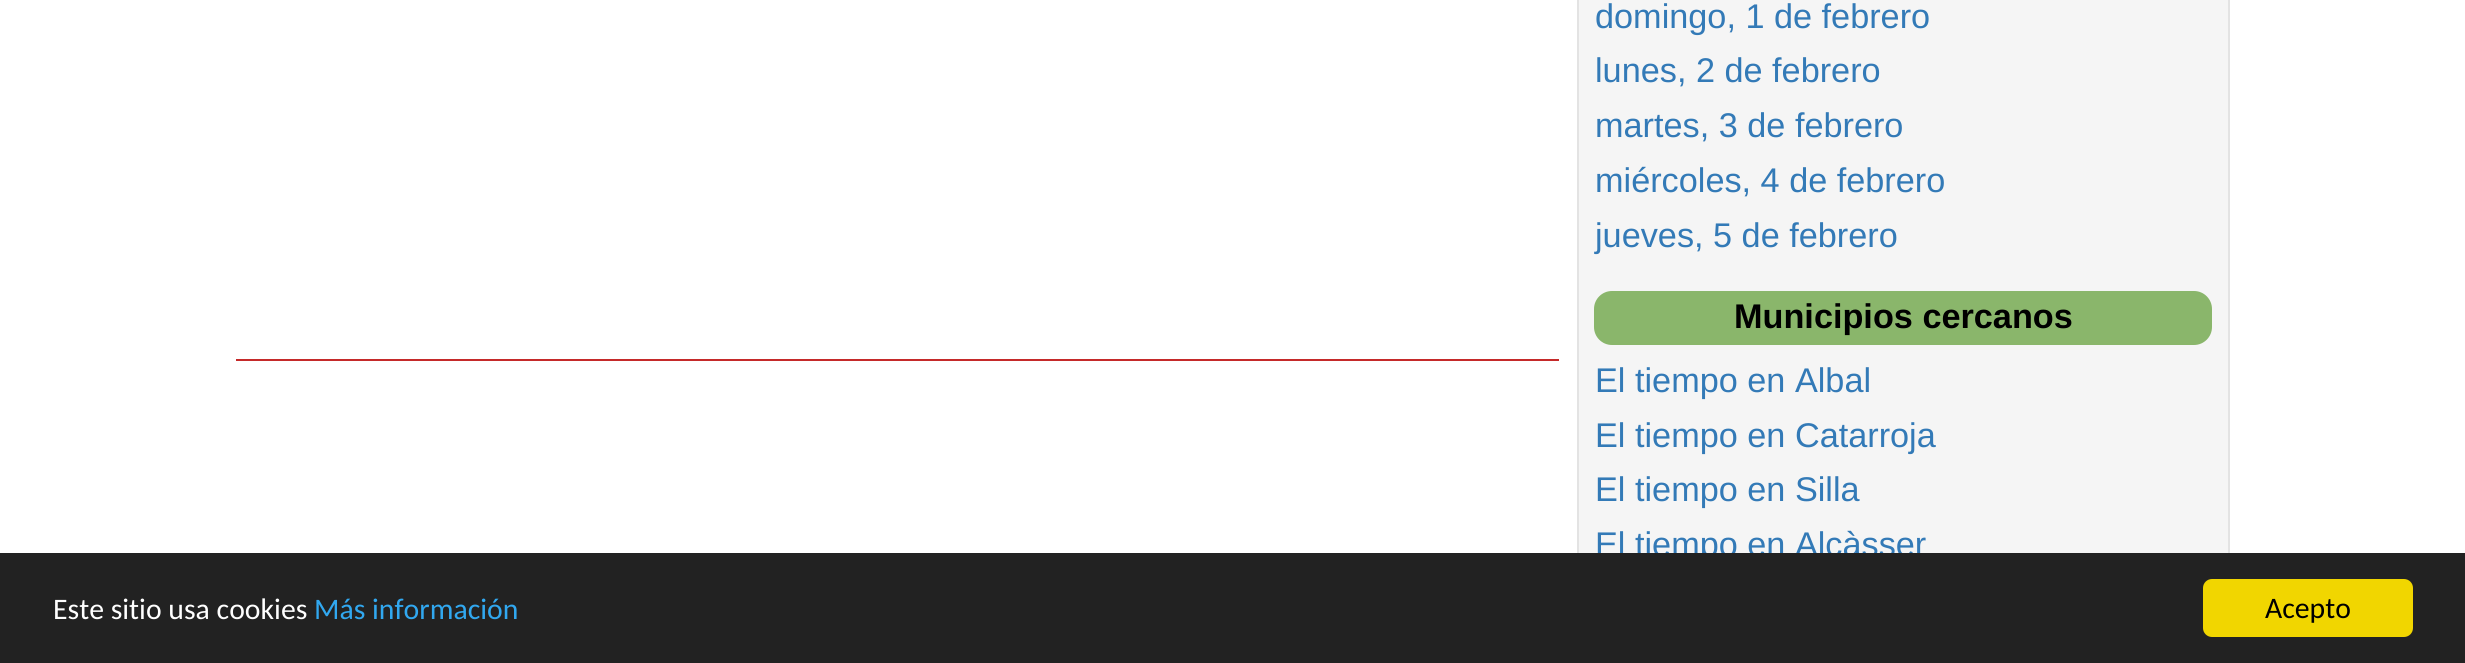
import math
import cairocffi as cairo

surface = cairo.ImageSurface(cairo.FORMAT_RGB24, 2465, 663)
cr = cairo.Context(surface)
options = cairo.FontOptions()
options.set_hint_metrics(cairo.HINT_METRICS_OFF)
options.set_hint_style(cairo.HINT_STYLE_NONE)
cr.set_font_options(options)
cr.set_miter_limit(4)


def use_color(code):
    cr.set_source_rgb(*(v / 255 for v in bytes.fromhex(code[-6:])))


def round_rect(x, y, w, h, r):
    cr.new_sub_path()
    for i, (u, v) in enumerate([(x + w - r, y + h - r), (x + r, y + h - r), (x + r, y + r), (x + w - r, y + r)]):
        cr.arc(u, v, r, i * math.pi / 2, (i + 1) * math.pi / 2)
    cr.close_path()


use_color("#ffffff")
cr.paint()
use_color("#c52a2a")
cr.rectangle(236, 359, 1323, 2)
cr.fill()
use_color("#f5f5f5")
cr.rectangle(1579, 0, 649, 553)
cr.fill()
cr.rectangle(1578, -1, 651, 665)
use_color("#e3e3e3")
cr.stroke()
cr.select_font_face("Liberation Sans")
cr.set_font_size(34.25)
use_color("#337ab7")
cr.move_to(1595, 28)
cr.show_text("domingo, 1 de febrero")
cr.move_to(1595, 82)
cr.show_text("lunes, 2 de febrero")
cr.move_to(1595, 137)
cr.show_text("martes, 3 de febrero")
cr.move_to(1595, 192)
cr.show_text("miércoles, 4 de febrero")
cr.move_to(1595, 247)
cr.show_text("jueves, 5 de febrero")
use_color("#8ab66b")
round_rect(1594, 291, 618, 54, 18)
cr.fill()
cr.select_font_face("Liberation Sans", cairo.FONT_SLANT_NORMAL, cairo.FONT_WEIGHT_BOLD)
use_color("#000000")
cr.move_to(1734, 328)
cr.show_text("Municipios cercanos")
cr.select_font_face("Liberation Sans")
use_color("#337ab7")
cr.move_to(1595, 392)
cr.show_text("El tiempo en Albal")
cr.move_to(1595, 447)
cr.show_text("El tiempo en Catarroja")
cr.move_to(1595, 501)
cr.show_text("El tiempo en Silla")
cr.move_to(1595, 556)
cr.show_text("El tiempo en Alcàsser")
use_color("#222222")
cr.rectangle(0, 553, 2465, 110)
cr.fill()
cr.select_font_face("Carlito")
cr.set_font_size(29.75)
use_color("#ffffff")
cr.move_to(53, 619)
cr.show_text("Este sitio usa cookies")
use_color("#31a8f0")
cr.move_to(314, 619)
cr.show_text("Más información")
use_color("#f1d600")
round_rect(2203, 579, 210, 58, 9)
cr.fill()
use_color("#000000")
cr.move_to(2265, 618)
cr.show_text("Acepto")
surface.write_to_png("result.png")
